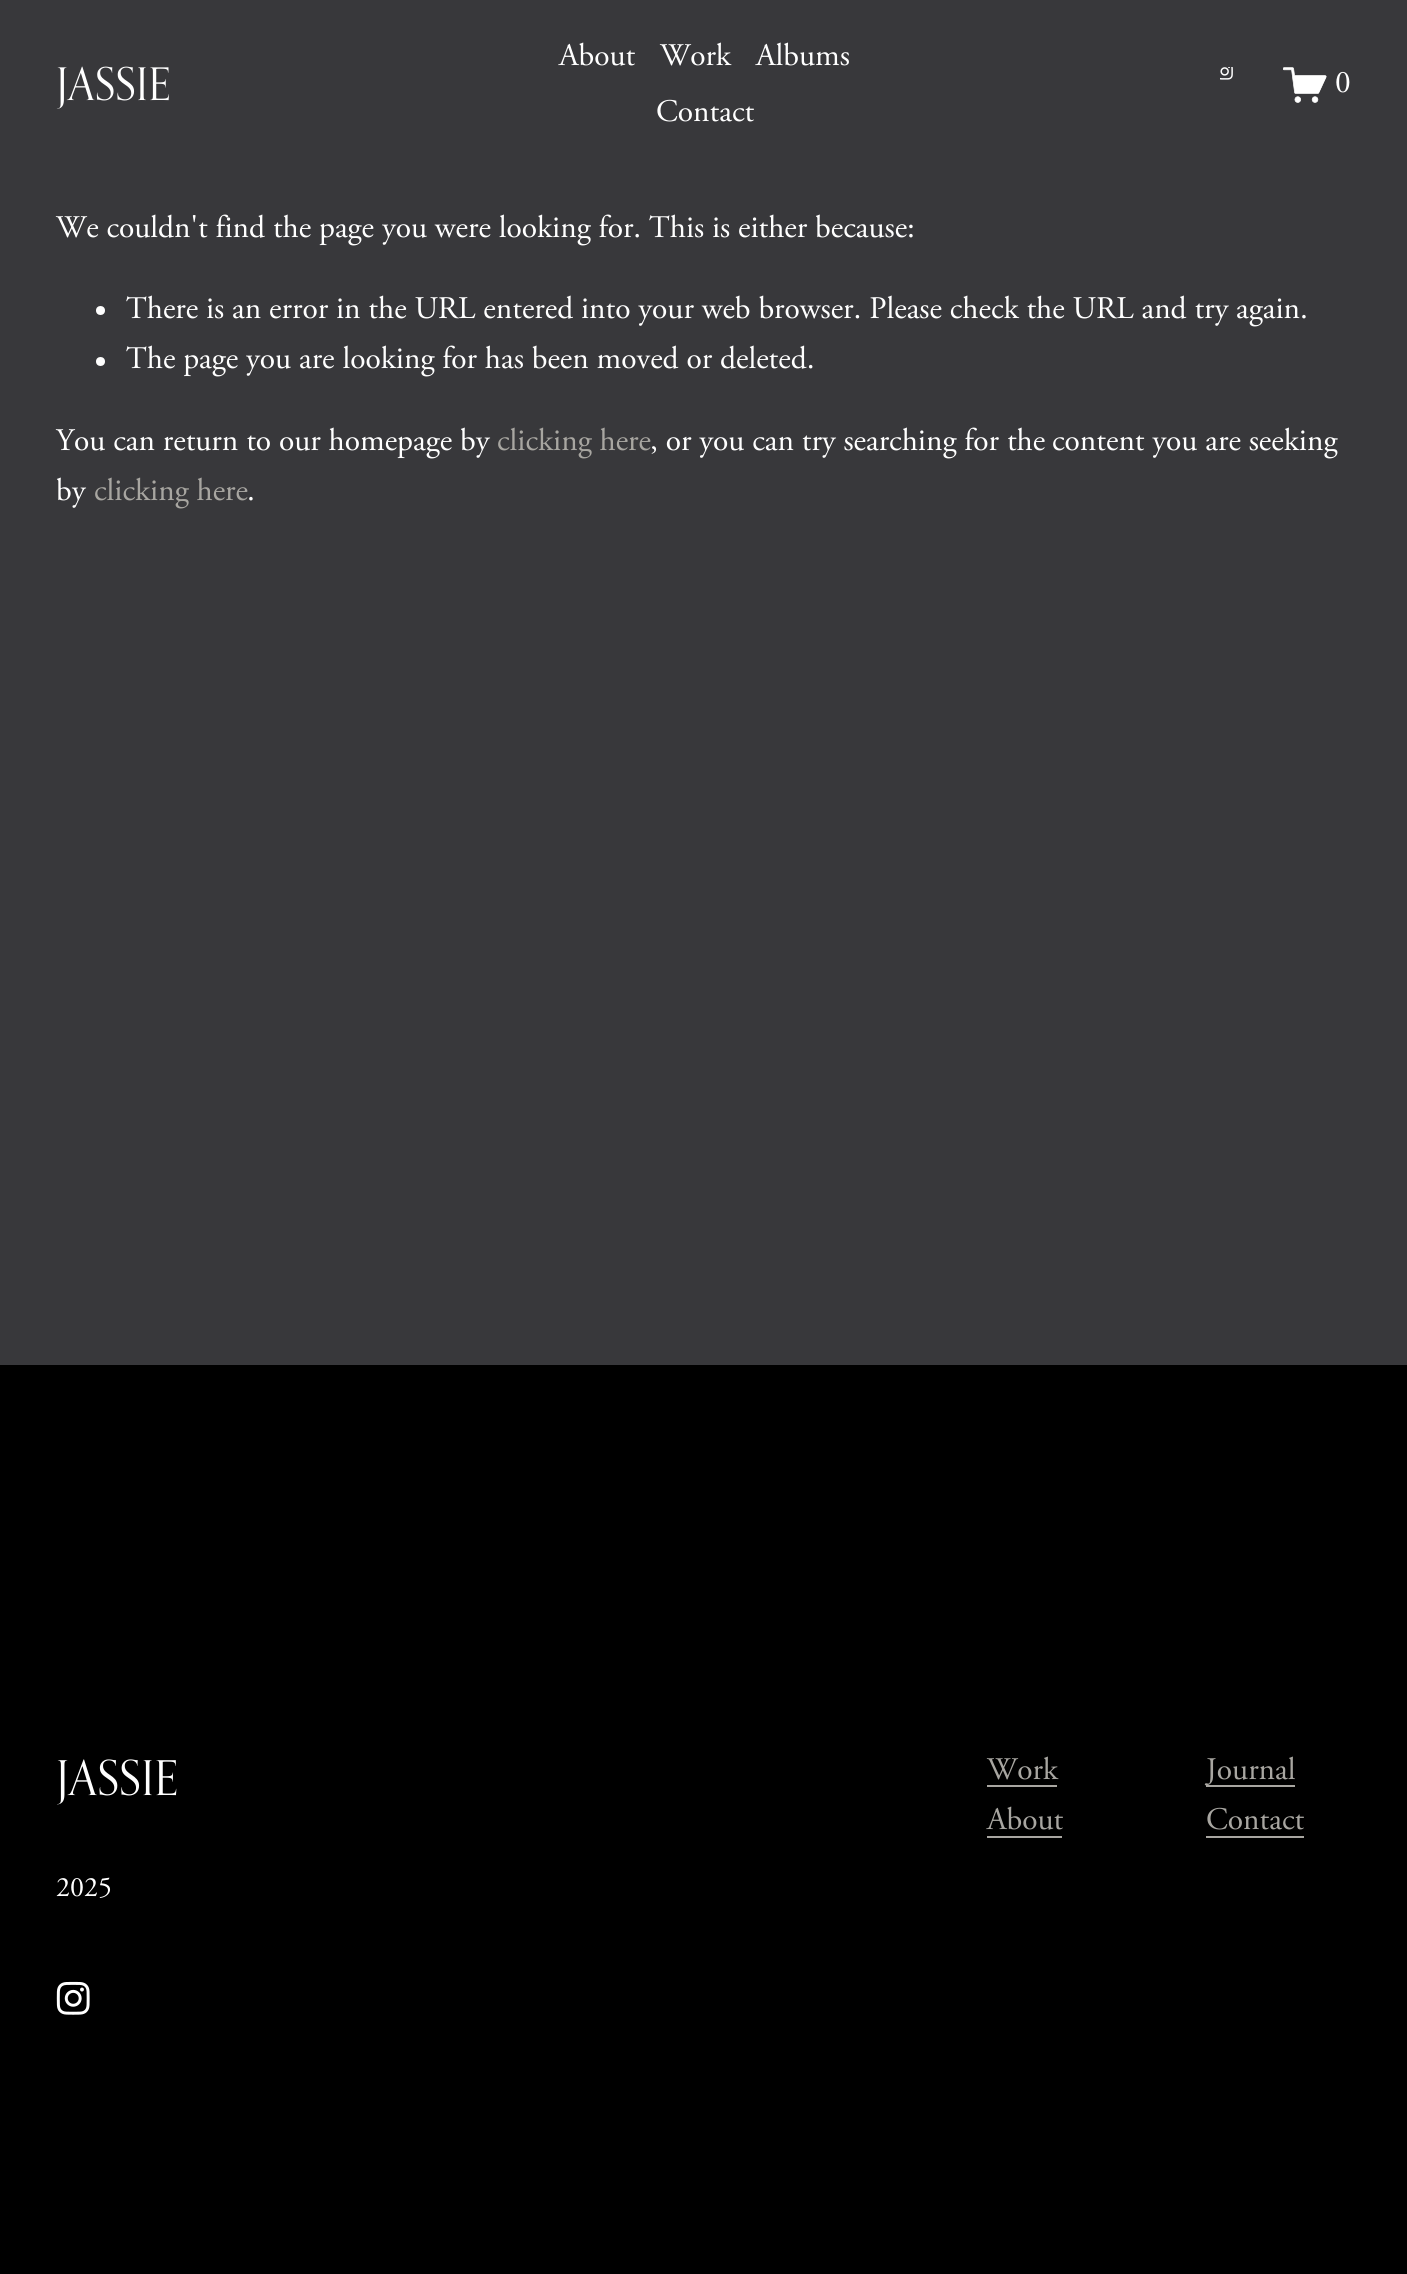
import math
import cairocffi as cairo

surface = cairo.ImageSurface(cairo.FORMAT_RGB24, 1407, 2274)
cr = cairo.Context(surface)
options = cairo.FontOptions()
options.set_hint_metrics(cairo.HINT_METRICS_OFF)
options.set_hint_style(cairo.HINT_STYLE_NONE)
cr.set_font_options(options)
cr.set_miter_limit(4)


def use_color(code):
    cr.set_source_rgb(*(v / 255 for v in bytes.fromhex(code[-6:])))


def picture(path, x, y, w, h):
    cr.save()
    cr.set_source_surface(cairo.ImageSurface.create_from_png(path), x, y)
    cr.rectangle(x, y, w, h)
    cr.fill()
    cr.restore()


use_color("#38383b")
cr.paint()
cr.select_font_face("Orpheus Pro")
cr.set_font_size(45)
use_color("#ffffff")
cr.move_to(56, 100)
cr.show_text("JASSIE")
cr.select_font_face("Adobe Garamond")
cr.set_font_size(31.4)
cr.move_to(559, 65)
cr.show_text("About")
cr.move_to(660, 65)
cr.show_text("Work")
cr.move_to(756, 65)
cr.show_text("Albums")
cr.move_to(656, 121)
cr.show_text("Contact")
picture("img1.png", 1220, 67, 13, 13)
picture("img2.png", 1283, 67, 44, 36)
cr.move_to(1335, 92)
cr.show_text("0")
cr.move_to(56, 237)
cr.show_text("We couldn't find the page you were looking for. This is either because:")
cr.new_path()
cr.arc(100.5, 310.5, 4.5, 0, 2 * math.pi)
cr.fill()
cr.move_to(126, 318)
cr.show_text("There is an error in the URL entered into your web browser. Please check the URL and try again.")
cr.new_path()
cr.arc(100.5, 361.5, 4.5, 0, 2 * math.pi)
cr.fill()
cr.move_to(126, 368)
cr.show_text("The page you are looking for has been moved or deleted.")
cr.move_to(56, 450)
cr.show_text("You can return to our homepage by")
use_color("#a8a6a1")
cr.move_to(497, 450)
cr.show_text("clicking here")
use_color("#ffffff")
cr.move_to(650, 450)
cr.show_text(", or you can try searching for the")
cr.move_to(1052, 450)
cr.show_text("content you are seeking")
cr.move_to(56, 500)
cr.show_text("by")
use_color("#a8a6a1")
cr.move_to(94, 500)
cr.show_text("clicking here")
use_color("#ffffff")
cr.move_to(247, 500)
cr.show_text(".")
use_color("#000000")
cr.rectangle(0, 1365, 1407, 909)
cr.fill()
cr.select_font_face("Orpheus Pro")
cr.set_font_size(48)
use_color("#ffffff")
cr.move_to(56, 1795)
cr.show_text("JASSIE")
cr.select_font_face("Adobe Garamond")
cr.set_font_size(28)
cr.move_to(56, 1896)
cr.show_text("2025")
cr.set_font_size(31.4)
use_color("#a8a6a1")
cr.move_to(987, 1779)
cr.show_text("Work")
cr.rectangle(987, 1785, 70, 2)
cr.fill()
cr.move_to(987, 1829)
cr.show_text("About")
cr.rectangle(987, 1836, 75, 2)
cr.fill()
cr.rectangle(1206, 1785, 89, 2)
cr.fill()
cr.move_to(1206, 1779)
cr.show_text("Journal")
cr.move_to(1206, 1829)
cr.show_text("Contact")
cr.rectangle(1206, 1836, 98, 2)
cr.fill()
picture("img3.png", 56, 1981, 34, 34)
surface.write_to_png("result.png")
